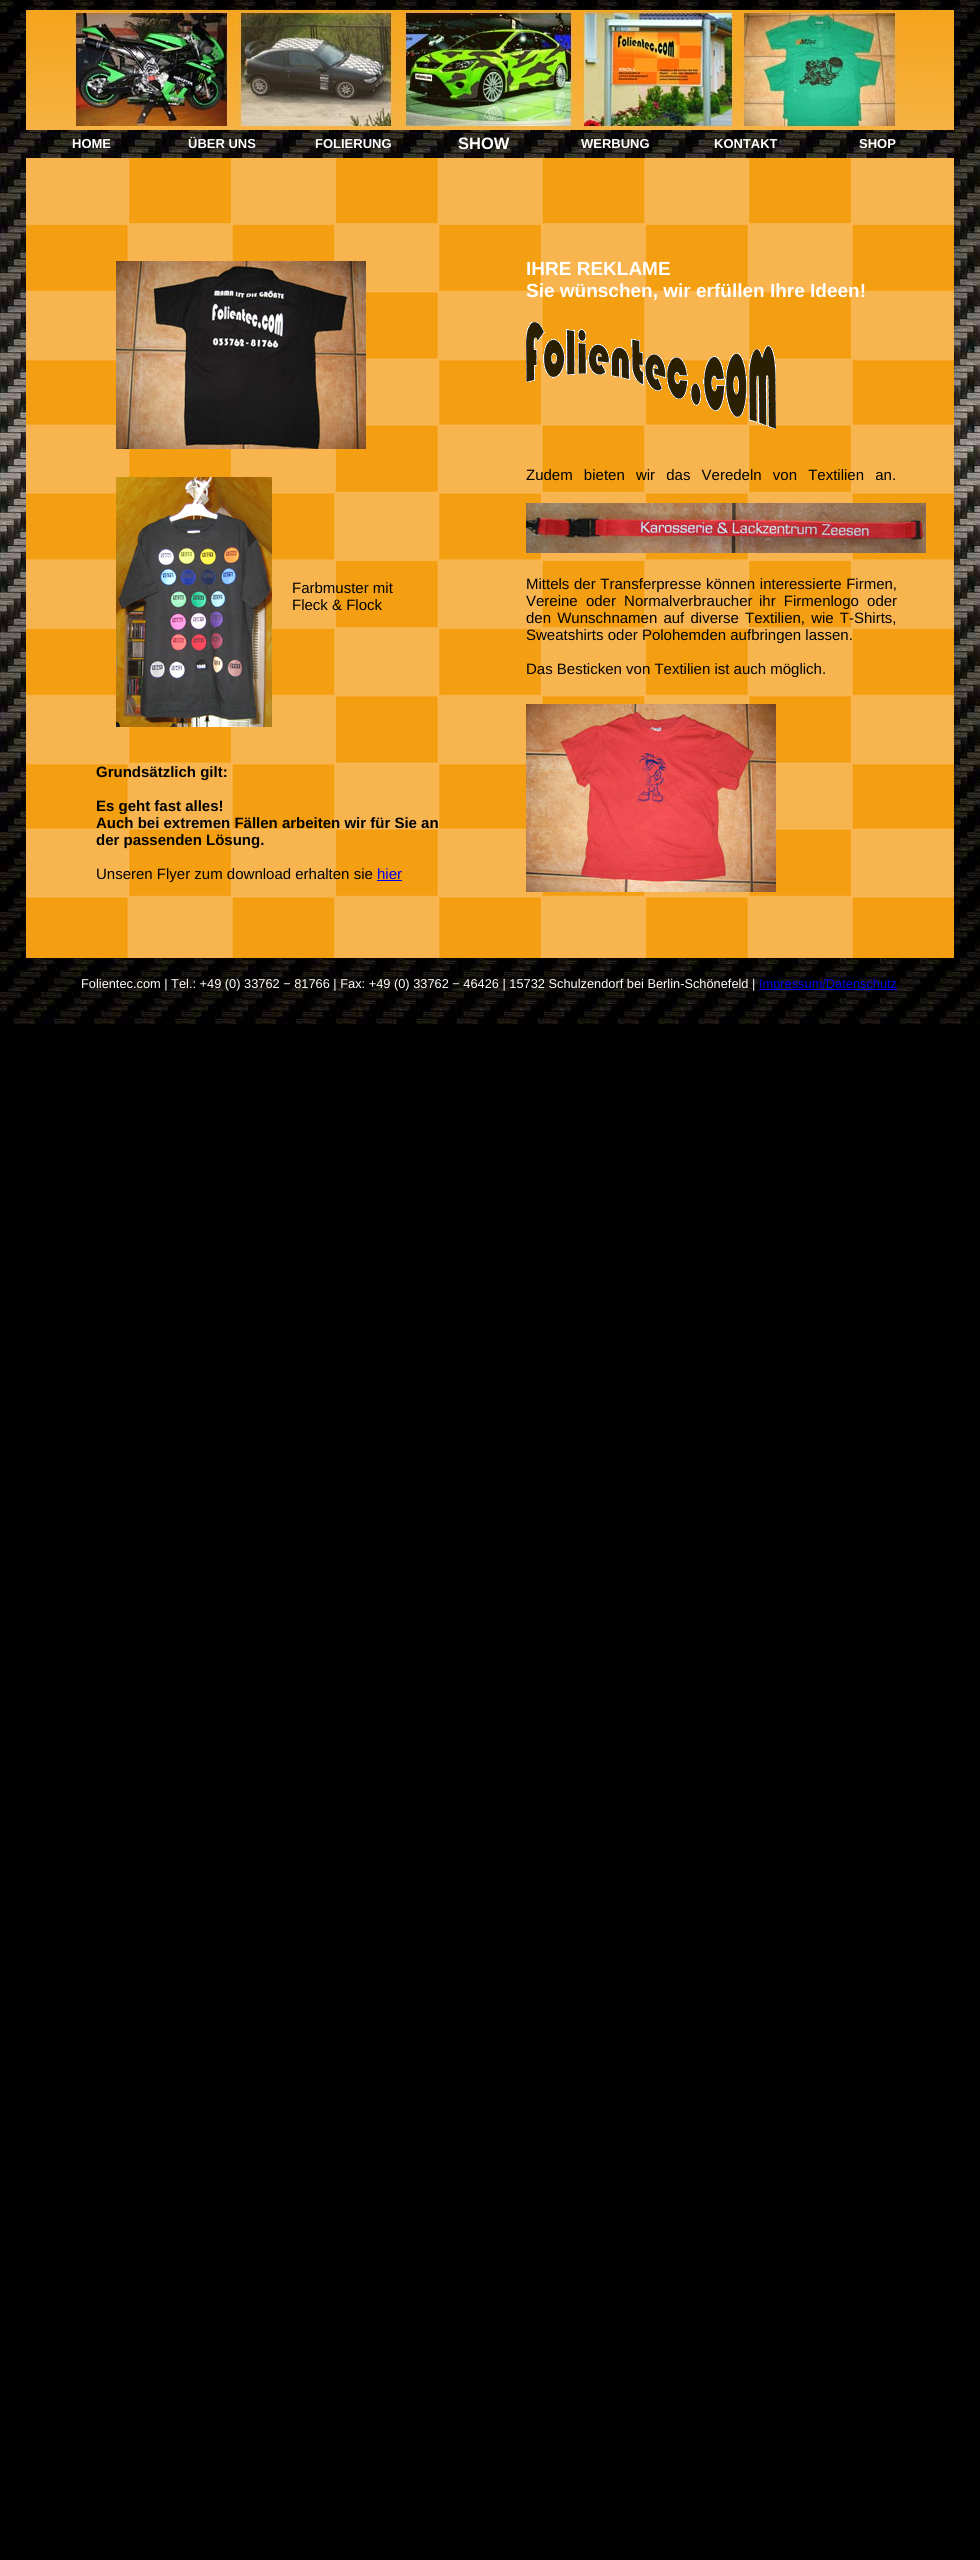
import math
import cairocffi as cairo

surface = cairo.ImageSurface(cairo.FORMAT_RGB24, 980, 2560)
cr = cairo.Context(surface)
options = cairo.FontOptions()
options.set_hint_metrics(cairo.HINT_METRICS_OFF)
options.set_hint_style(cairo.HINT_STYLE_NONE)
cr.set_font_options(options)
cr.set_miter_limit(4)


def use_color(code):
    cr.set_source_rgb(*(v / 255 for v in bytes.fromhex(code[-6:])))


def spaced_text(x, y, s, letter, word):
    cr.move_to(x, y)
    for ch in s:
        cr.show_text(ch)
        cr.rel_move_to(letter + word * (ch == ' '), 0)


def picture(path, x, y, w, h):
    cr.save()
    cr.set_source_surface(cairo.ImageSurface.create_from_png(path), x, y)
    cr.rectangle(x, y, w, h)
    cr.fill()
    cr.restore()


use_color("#000000")
cr.paint()
picture("img1.png", 0, 0, 980, 1024)
picture("img2.png", 26, 10, 928, 120)
cr.select_font_face("Liberation Sans", cairo.FONT_SLANT_NORMAL, cairo.FONT_WEIGHT_BOLD)
cr.set_font_size(13)
use_color("#ffffff")
cr.move_to(72, 148)
cr.show_text("HOME")
cr.move_to(188, 148)
cr.show_text("ÜBER UNS")
cr.move_to(315, 148)
cr.show_text("FOLIERUNG")
cr.set_font_size(16.5)
cr.move_to(458, 149)
cr.show_text("SHOW")
cr.set_font_size(13)
cr.move_to(581, 148)
cr.show_text("WERBUNG")
cr.move_to(714, 148)
cr.show_text("KONTAKT")
cr.move_to(859, 148)
cr.show_text("SHOP")
picture("img3.png", 26, 158, 928, 800)
cr.set_font_size(19)
cr.move_to(526, 275)
cr.show_text("IHRE REKLAME")
cr.move_to(526, 297)
cr.show_text("Sie wünschen, wir erfüllen Ihre Ideen!")
picture("img4.png", 526, 322, 250, 107)
cr.select_font_face("Liberation Sans")
cr.set_font_size(15)
use_color("#000000")
spaced_text(526, 480, "Zudem bieten wir das Veredeln von Textilien an.", 0, 7)
picture("img5.png", 526, 503, 400, 50)
spaced_text(526, 589, "Mittels der Transferpresse können interessierte Firmen,", 0, 0.5)
spaced_text(526, 606, "Vereine oder Normalverbraucher", 0, 4)
spaced_text(759, 606, "ihr Firmenlogo oder", 0, 4)
spaced_text(526, 623, "den Wunschnamen auf diverse Textilien, wie T-Shirts,", 0, 2)
cr.move_to(526, 640)
cr.show_text("Sweatshirts oder Polohemden aufbringen lassen.")
cr.move_to(526, 674)
cr.show_text("Das Besticken von Textilien ist auch möglich.")
picture("img6.png", 526, 704, 250, 188)
picture("img7.png", 116, 261, 250, 188)
picture("img8.png", 116, 477, 156, 250)
cr.move_to(292, 593)
cr.show_text("Farbmuster mit")
cr.move_to(292, 610)
cr.show_text("Fleck & Flock")
cr.select_font_face("Liberation Sans", cairo.FONT_SLANT_NORMAL, cairo.FONT_WEIGHT_BOLD)
cr.move_to(96, 777)
cr.show_text("Grundsätzlich gilt:")
cr.move_to(96, 811)
cr.show_text("Es geht fast alles!")
cr.move_to(96, 828)
cr.show_text("Auch bei extremen Fällen arbeiten wir für Sie an")
cr.move_to(96, 845)
cr.show_text("der passenden Lösung.")
cr.select_font_face("Liberation Sans")
cr.move_to(96, 879)
cr.show_text("Unseren Flyer zum download erhalten sie")
use_color("#0000ee")
cr.move_to(377, 879)
cr.show_text("hier")
cr.rectangle(377, 880, 25, 1)
cr.fill()
cr.set_font_size(12.8)
use_color("#ffffff")
cr.move_to(81, 988)
cr.show_text("Folientec.com | Tel.: +49 (0) 33762 − 81766 | Fax: +49 (0) 33762 − 46426 | 15732 Schulzendorf bei Berlin-Schönefeld |")
use_color("#0000ee")
cr.rectangle(759, 989, 138, 1)
cr.fill()
cr.move_to(759, 988)
cr.show_text("Impressum/Datenschutz")
surface.write_to_png("result.png")
